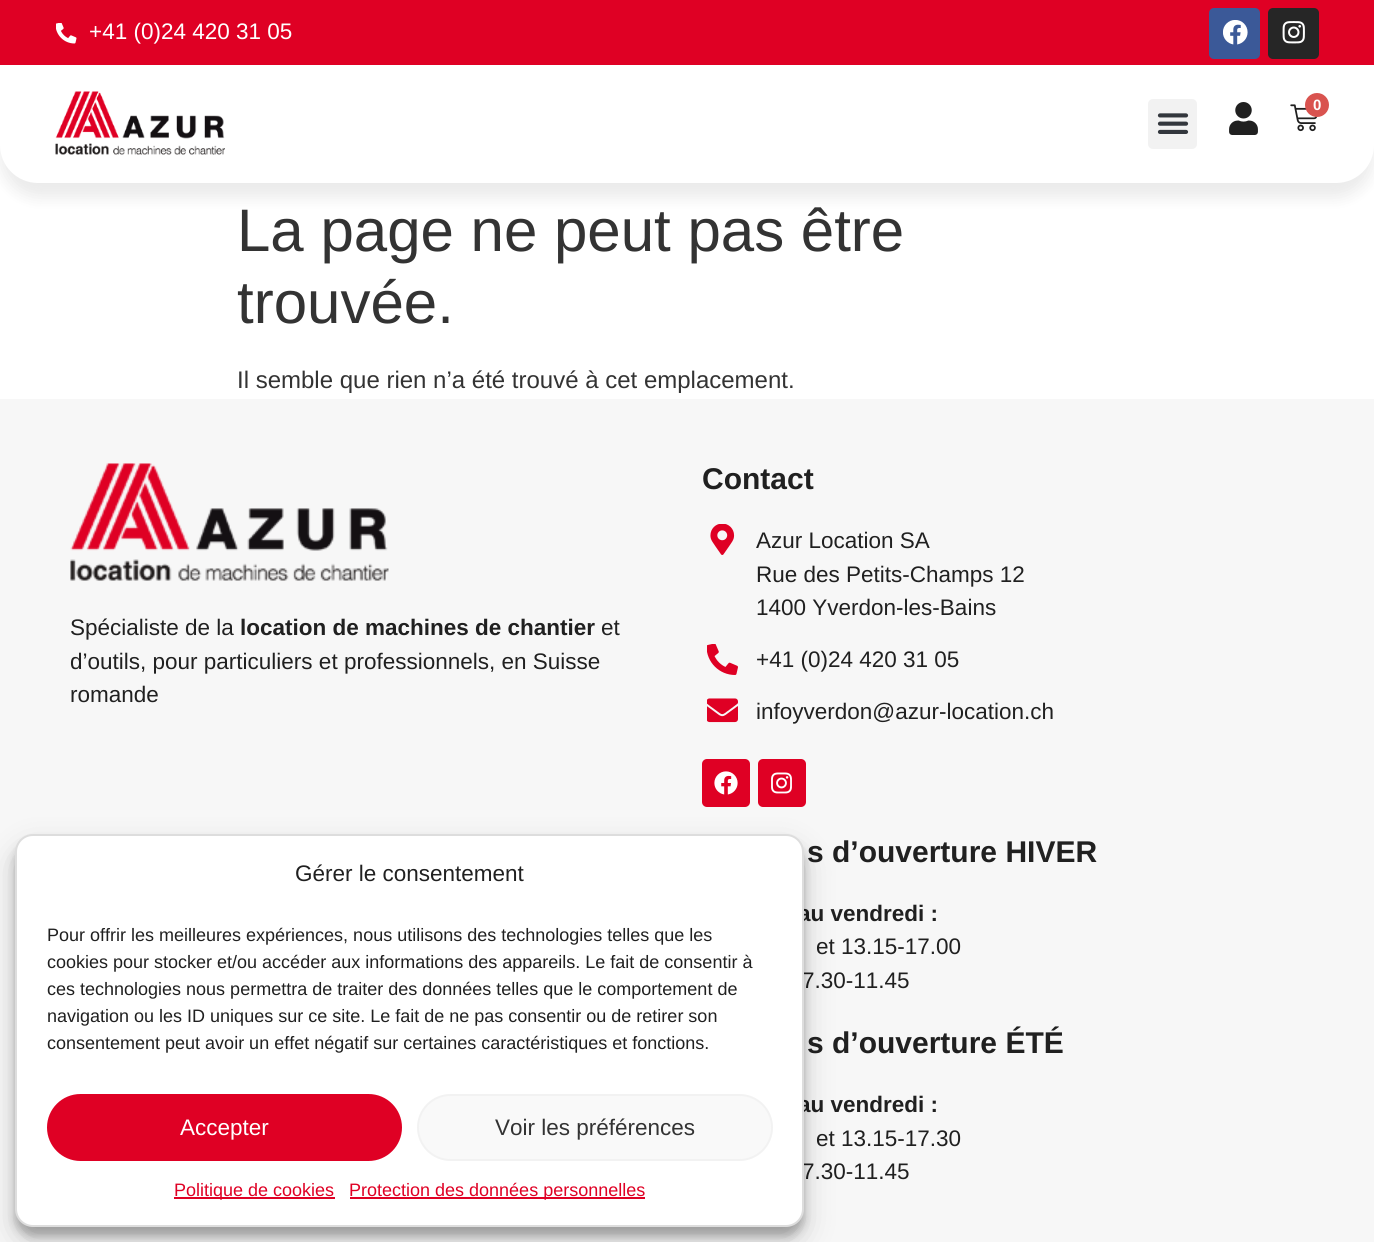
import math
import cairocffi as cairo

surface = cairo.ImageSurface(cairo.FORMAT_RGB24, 1374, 1242)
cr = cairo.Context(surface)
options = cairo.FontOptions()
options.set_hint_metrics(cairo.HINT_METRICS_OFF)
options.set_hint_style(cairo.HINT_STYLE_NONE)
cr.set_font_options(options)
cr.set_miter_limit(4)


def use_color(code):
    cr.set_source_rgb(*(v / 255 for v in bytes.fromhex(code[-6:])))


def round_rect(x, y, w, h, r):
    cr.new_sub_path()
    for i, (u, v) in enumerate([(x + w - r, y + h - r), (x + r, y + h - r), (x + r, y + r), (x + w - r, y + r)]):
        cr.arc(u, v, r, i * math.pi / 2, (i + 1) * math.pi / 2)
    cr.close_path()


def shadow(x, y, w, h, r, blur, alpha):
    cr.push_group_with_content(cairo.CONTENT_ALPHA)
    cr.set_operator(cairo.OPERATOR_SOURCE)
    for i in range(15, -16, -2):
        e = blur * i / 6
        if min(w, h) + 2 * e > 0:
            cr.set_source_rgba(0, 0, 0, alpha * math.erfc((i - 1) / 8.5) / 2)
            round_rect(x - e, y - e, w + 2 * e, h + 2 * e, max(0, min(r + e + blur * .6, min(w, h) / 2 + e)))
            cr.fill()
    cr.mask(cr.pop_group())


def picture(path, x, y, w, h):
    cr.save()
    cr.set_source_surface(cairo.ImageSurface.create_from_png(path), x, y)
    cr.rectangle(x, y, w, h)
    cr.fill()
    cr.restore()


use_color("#ffffff")
cr.paint()
use_color("#df0024")
cr.rectangle(0, 0, 1374, 65)
cr.fill()
picture("img1.png", 56, 23, 21, 21)
cr.select_font_face("Liberation Sans")
cr.set_font_size(22.5)
use_color("#ffffff")
cr.move_to(89, 39)
cr.show_text("+41 (0)24 420 31 05")
use_color("#3b5998")
round_rect(1209, 8, 51, 51, 5)
cr.fill()
picture("img2.png", 1223, 20, 25, 25)
use_color("#262626")
round_rect(1268, 8, 51, 51, 5)
cr.fill()
picture("img3.png", 1282, 21, 23, 23)
use_color("#000000")
shadow(0, 80, 1374, 118, 38, 7.5, 0.08)
use_color("#ffffff")
cr.new_path()
cr.move_to(0, 65)
cr.line_to(1374, 65)
cr.line_to(1374, 145)
cr.curve_to(1374, 166, 1357, 183, 1336, 183)
cr.line_to(38, 183)
cr.curve_to(17, 183, 0, 166, 0, 145)
cr.close_path()
cr.fill()
picture("img4.png", 55, 91, 170, 64)
use_color("#f2f2f2")
round_rect(1148, 99, 49, 50, 5)
cr.fill()
picture("img5.png", 1157, 113, 32, 21)
picture("img6.png", 1229, 102, 29, 33)
picture("img7.png", 1290, 104, 28, 28)
use_color("#d9534f")
cr.arc(1317, 105, 12, 0, 2 * math.pi)
cr.fill()
cr.select_font_face("Liberation Sans", cairo.FONT_SLANT_NORMAL, cairo.FONT_WEIGHT_BOLD)
cr.set_font_size(15)
use_color("#ffffff")
cr.move_to(1313, 110)
cr.show_text("0")
cr.select_font_face("Liberation Sans")
cr.set_font_size(60)
use_color("#333333")
cr.move_to(237, 251)
cr.show_text("La page ne peut pas être")
cr.move_to(237, 323)
cr.show_text("trouvée.")
cr.set_font_size(24)
cr.move_to(237, 388)
cr.show_text("Il semble que rien n’a été trouvé à cet emplacement.")
use_color("#f7f7f7")
cr.rectangle(0, 399, 1374, 843)
cr.fill()
picture("img8.png", 70, 463, 319, 118)
cr.set_font_size(22.5)
use_color("#202020")
cr.move_to(70, 635)
cr.show_text("Spécialiste de la")
cr.select_font_face("Liberation Sans", cairo.FONT_SLANT_NORMAL, cairo.FONT_WEIGHT_BOLD)
cr.move_to(240, 635)
cr.show_text("location de machines de chantier")
cr.select_font_face("Liberation Sans")
cr.move_to(601, 635)
cr.show_text("et")
cr.move_to(70, 669)
cr.show_text("d’outils, pour particuliers et professionnels, en Suisse")
cr.move_to(70, 702)
cr.show_text("romande")
cr.select_font_face("Liberation Sans", cairo.FONT_SLANT_NORMAL, cairo.FONT_WEIGHT_BOLD)
cr.set_font_size(30)
cr.move_to(702, 489)
cr.show_text("Contact")
picture("img9.png", 710, 524, 25, 31)
cr.select_font_face("Liberation Sans")
cr.set_font_size(22.5)
cr.move_to(756, 548)
cr.show_text("Azur Location SA")
cr.move_to(756, 582)
cr.show_text("Rue des Petits-Champs 12")
cr.move_to(756, 615)
cr.show_text("1400 Yverdon-les-Bains")
picture("img10.png", 707, 644, 31, 31)
cr.move_to(756, 667)
cr.show_text("+41 (0)24 420 31 05")
picture("img11.png", 707, 698, 31, 25)
cr.move_to(756, 719)
cr.show_text("infoyverdon@azur-location.ch")
use_color("#df0024")
round_rect(702, 759, 48, 48, 5)
cr.fill()
picture("img12.png", 714, 771, 24, 24)
round_rect(758, 759, 48, 48, 5)
cr.fill()
picture("img13.png", 771, 772, 21, 22)
cr.select_font_face("Liberation Sans", cairo.FONT_SLANT_NORMAL, cairo.FONT_WEIGHT_BOLD)
cr.set_font_size(30)
use_color("#202020")
cr.move_to(807, 862)
cr.show_text("s d’ouverture HIVER")
cr.set_font_size(22.5)
cr.move_to(798, 921)
cr.show_text("au vendredi :")
cr.select_font_face("Liberation Sans")
cr.move_to(816, 954)
cr.show_text("et 13.15-17.00")
cr.move_to(802, 988)
cr.show_text("7.30-11.45")
cr.select_font_face("Liberation Sans", cairo.FONT_SLANT_NORMAL, cairo.FONT_WEIGHT_BOLD)
cr.set_font_size(30)
cr.move_to(807, 1053)
cr.show_text("s d’ouverture ÉTÉ")
cr.set_font_size(22.5)
cr.move_to(798, 1112)
cr.show_text("au vendredi :")
cr.select_font_face("Liberation Sans")
cr.move_to(816, 1146)
cr.show_text("et 13.15-17.30")
cr.move_to(802, 1179)
cr.show_text("7.30-11.45")
use_color("#000000")
shadow(15, 843, 789, 393, 18, 4.5, 0.23)
shadow(15, 849, 789, 393, 18, 15, 0.19)
use_color("#ffffff")
round_rect(16, 835, 787, 391, 17)
cr.fill_preserve()
use_color("#dddddd")
cr.stroke()
use_color("#202020")
cr.move_to(295, 881)
cr.show_text("Gérer le consentement")
cr.set_font_size(18)
cr.move_to(47, 941)
cr.show_text("Pour offrir les meilleures expériences, nous utilisons des technologies telles que les")
cr.move_to(47, 968)
cr.show_text("cookies pour stocker et/ou accéder aux informations des appareils. Le fait de consentir à")
cr.move_to(47, 995)
cr.show_text("ces technologies nous permettra de traiter des données telles que le comportement de")
cr.move_to(47, 1022)
cr.show_text("navigation ou les ID uniques sur ce site. Le fait de ne pas consentir ou de retirer son")
cr.move_to(47, 1049)
cr.show_text("consentement peut avoir un effet négatif sur certaines caractéristiques et fonctions.")
use_color("#df0024")
round_rect(48, 1095, 353, 65, 32.5)
cr.fill_preserve()
cr.stroke()
cr.set_font_size(22.5)
use_color("#ffffff")
cr.move_to(180, 1135)
cr.show_text("Accepter")
use_color("#f9f9f9")
round_rect(418, 1095, 354, 65, 32.5)
cr.fill_preserve()
use_color("#f2f2f2")
cr.stroke()
use_color("#333333")
cr.move_to(495, 1135)
cr.show_text("Voir les préférences")
use_color("#df0024")
cr.rectangle(174, 1197, 161, 2)
cr.fill()
cr.set_font_size(18)
cr.move_to(174, 1196)
cr.show_text("Politique de cookies")
cr.rectangle(350, 1197, 295, 2)
cr.fill()
cr.move_to(349, 1196)
cr.show_text("Protection des données personnelles")
surface.write_to_png("result.png")
